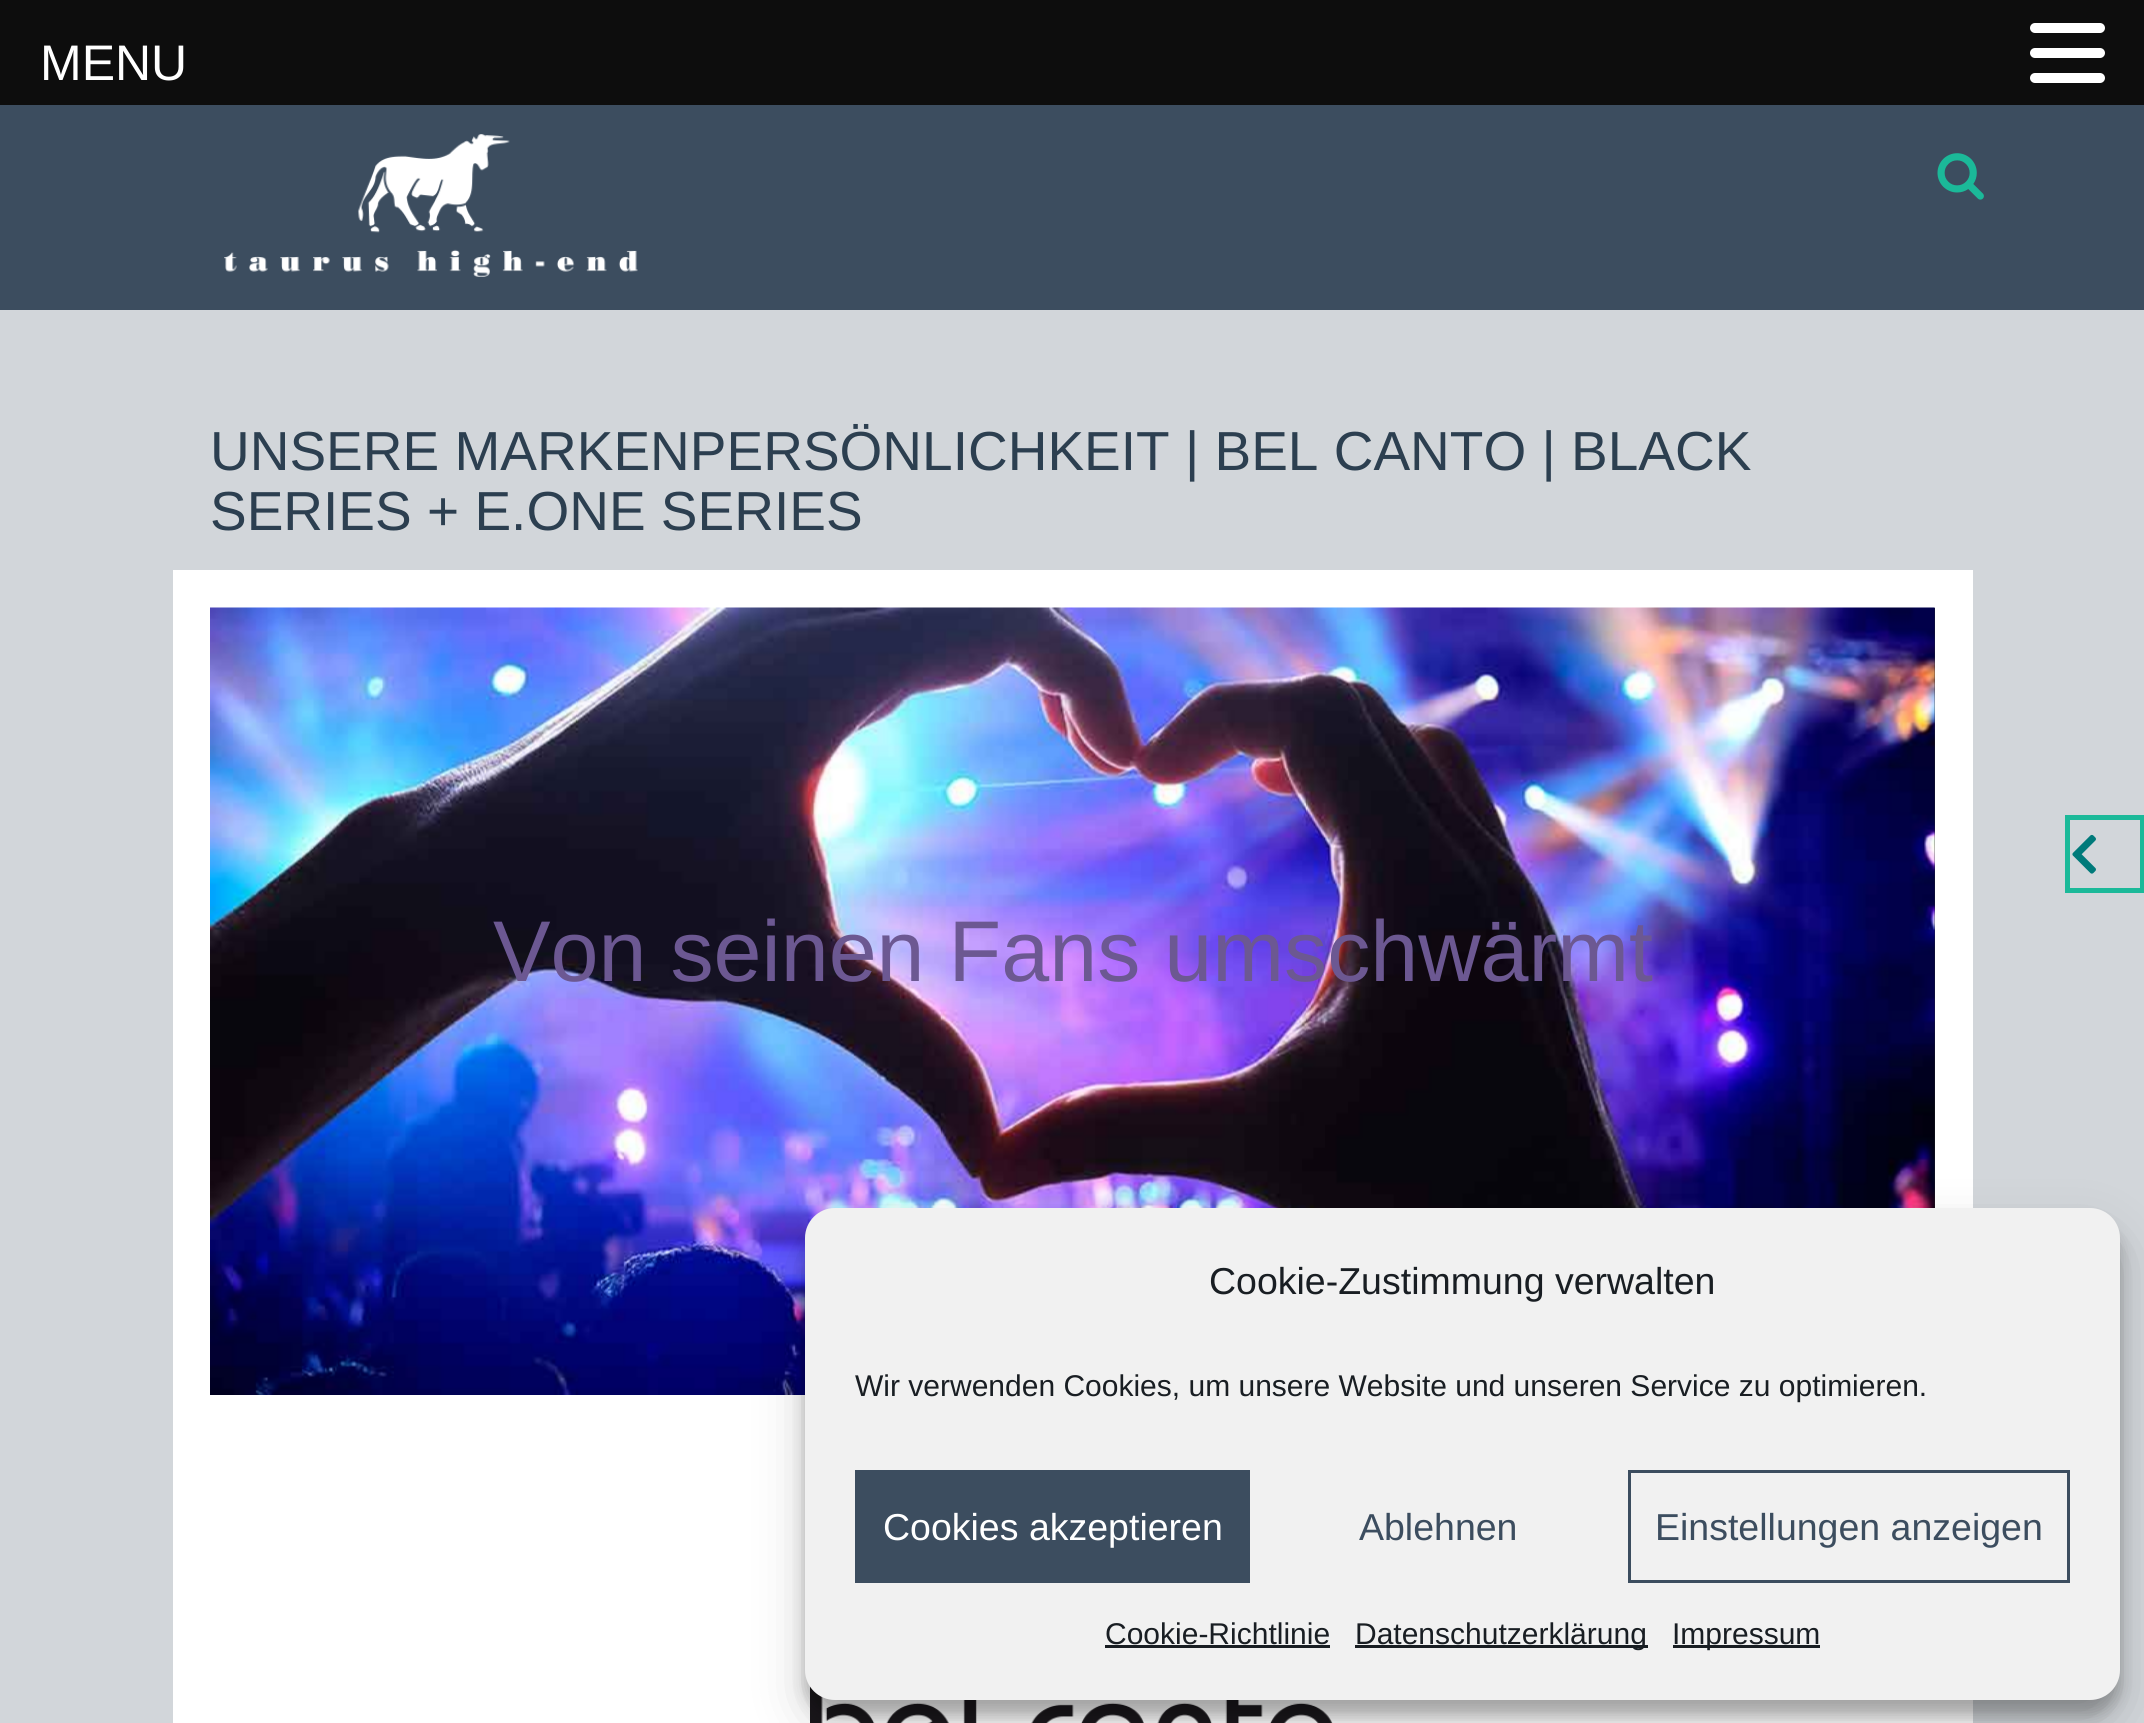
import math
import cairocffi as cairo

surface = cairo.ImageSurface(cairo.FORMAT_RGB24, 2144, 1723)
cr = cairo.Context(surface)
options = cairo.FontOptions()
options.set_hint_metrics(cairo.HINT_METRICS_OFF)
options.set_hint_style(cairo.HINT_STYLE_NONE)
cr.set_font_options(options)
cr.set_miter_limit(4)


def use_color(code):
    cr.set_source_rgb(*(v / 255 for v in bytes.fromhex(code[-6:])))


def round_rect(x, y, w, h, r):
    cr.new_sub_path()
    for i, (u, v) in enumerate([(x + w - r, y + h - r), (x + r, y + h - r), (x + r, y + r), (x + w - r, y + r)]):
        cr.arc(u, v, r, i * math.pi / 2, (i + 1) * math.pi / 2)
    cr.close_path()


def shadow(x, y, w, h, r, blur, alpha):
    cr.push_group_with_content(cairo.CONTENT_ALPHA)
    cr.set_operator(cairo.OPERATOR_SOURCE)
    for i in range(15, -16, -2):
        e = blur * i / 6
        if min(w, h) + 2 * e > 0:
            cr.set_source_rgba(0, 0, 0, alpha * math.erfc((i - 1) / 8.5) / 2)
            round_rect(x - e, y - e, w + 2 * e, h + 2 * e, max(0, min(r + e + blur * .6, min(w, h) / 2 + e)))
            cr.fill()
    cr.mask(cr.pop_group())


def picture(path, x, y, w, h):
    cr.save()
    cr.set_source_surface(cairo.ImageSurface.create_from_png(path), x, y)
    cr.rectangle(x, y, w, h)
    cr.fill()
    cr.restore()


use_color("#d2d6da")
cr.paint()
use_color("#0d0d0d")
cr.rectangle(0, 0, 2144, 105)
cr.fill()
cr.select_font_face("Liberation Sans")
cr.set_font_size(50)
use_color("#ffffff")
cr.move_to(40, 80)
cr.show_text("MENU")
round_rect(2030, 23, 75, 10, 5)
cr.fill()
round_rect(2030, 48, 75, 10, 5)
cr.fill()
round_rect(2030, 73, 75, 10, 5)
cr.fill()
use_color("#3c4d5f")
cr.rectangle(0, 105, 2144, 205)
cr.fill()
picture("img1.png", 224, 134, 414, 143)
picture("img2.png", 1937, 153, 47, 47)
cr.set_font_size(55)
use_color("#2c3f50")
cr.move_to(210, 470)
cr.show_text("UNSERE MARKENPERSÖNLICHKEIT | BEL CANTO | BLACK")
cr.move_to(210, 530)
cr.show_text("SERIES + E.ONE SERIES")
use_color("#ffffff")
cr.rectangle(173, 570, 1800, 1153)
cr.fill()
cr.rectangle(2067.5, 817.5, 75, 73)
use_color("#1bb999")
cr.set_line_width(5)
cr.stroke()
picture("img3.png", 2072, 834, 24, 40)
use_color("#222222")
cr.rectangle(1934, 608, 1, 600)
cr.fill()
picture("img4.png", 210, 607, 1725, 788)
cr.set_font_size(86.25)
use_color("#6c5892")
cr.move_to(493, 981)
cr.show_text("Von seinen Fans umschwärmt")
picture("img5.png", 810, 1686, 523, 37)
use_color("#000000")
shadow(805, 1223, 1315, 492, 30, 7.5, 0.23)
shadow(805, 1233, 1315, 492, 30, 25, 0.19)
use_color("#f1f1f1")
round_rect(805, 1208, 1315, 492, 30)
cr.fill()
cr.set_font_size(37.5)
use_color("#191e23")
cr.move_to(1209, 1294)
cr.show_text("Cookie-Zustimmung verwalten")
cr.set_font_size(30)
cr.move_to(855, 1396)
cr.show_text("Wir verwenden Cookies, um unsere Website und unseren Service zu optimieren.")
use_color("#3c4d5f")
cr.rectangle(855, 1470, 395, 113)
cr.fill()
cr.set_font_size(37.5)
use_color("#ffffff")
cr.move_to(883, 1540)
cr.show_text("Cookies akzeptieren")
use_color("#3c4d5f")
cr.move_to(1359, 1540)
cr.show_text("Ablehnen")
cr.rectangle(1629.5, 1471.5, 439, 110)
cr.set_line_width(3)
cr.stroke()
cr.move_to(1655, 1540)
cr.show_text("Einstellungen anzeigen")
cr.set_font_size(30)
use_color("#191e23")
cr.move_to(1105, 1644)
cr.show_text("Cookie-Richtlinie")
cr.rectangle(1105, 1645, 225, 3)
cr.fill()
cr.rectangle(1355, 1645, 293, 3)
cr.fill()
cr.move_to(1355, 1644)
cr.show_text("Datenschutzerklärung")
cr.rectangle(1673, 1645, 147, 3)
cr.fill()
cr.move_to(1672, 1644)
cr.show_text("Impressum")
surface.write_to_png("result.png")
